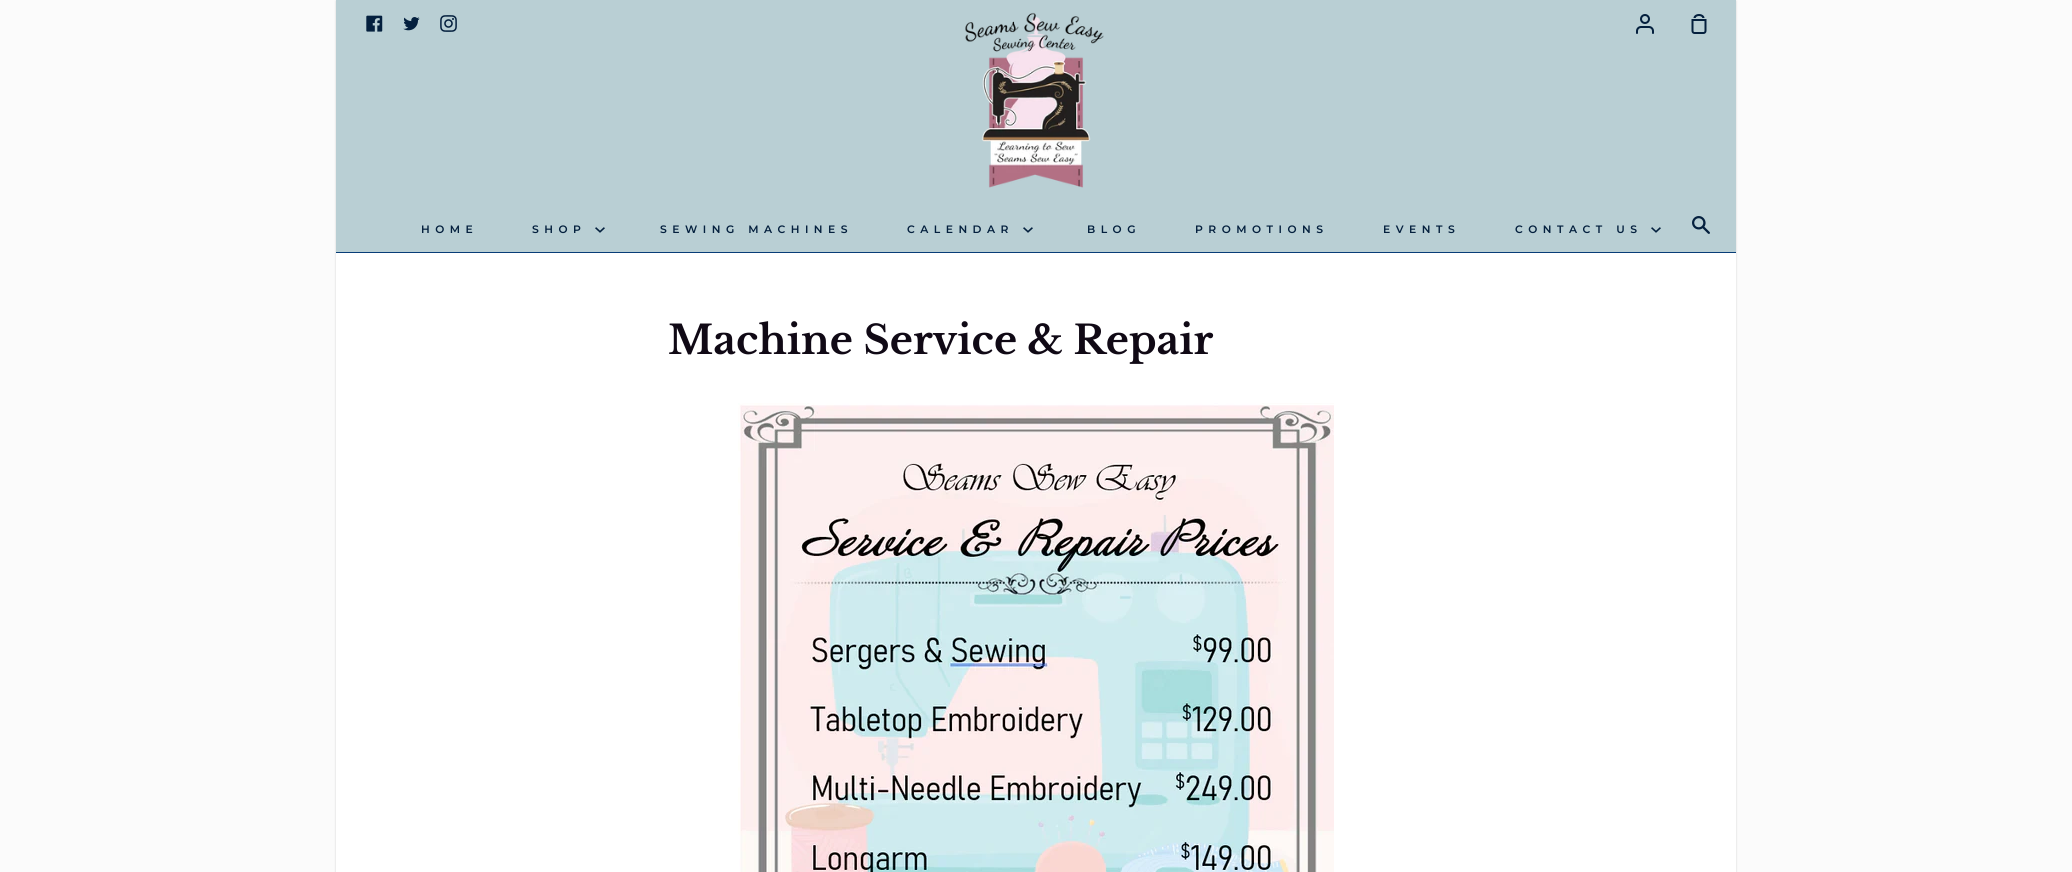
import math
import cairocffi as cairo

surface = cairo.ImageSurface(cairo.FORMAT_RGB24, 2072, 872)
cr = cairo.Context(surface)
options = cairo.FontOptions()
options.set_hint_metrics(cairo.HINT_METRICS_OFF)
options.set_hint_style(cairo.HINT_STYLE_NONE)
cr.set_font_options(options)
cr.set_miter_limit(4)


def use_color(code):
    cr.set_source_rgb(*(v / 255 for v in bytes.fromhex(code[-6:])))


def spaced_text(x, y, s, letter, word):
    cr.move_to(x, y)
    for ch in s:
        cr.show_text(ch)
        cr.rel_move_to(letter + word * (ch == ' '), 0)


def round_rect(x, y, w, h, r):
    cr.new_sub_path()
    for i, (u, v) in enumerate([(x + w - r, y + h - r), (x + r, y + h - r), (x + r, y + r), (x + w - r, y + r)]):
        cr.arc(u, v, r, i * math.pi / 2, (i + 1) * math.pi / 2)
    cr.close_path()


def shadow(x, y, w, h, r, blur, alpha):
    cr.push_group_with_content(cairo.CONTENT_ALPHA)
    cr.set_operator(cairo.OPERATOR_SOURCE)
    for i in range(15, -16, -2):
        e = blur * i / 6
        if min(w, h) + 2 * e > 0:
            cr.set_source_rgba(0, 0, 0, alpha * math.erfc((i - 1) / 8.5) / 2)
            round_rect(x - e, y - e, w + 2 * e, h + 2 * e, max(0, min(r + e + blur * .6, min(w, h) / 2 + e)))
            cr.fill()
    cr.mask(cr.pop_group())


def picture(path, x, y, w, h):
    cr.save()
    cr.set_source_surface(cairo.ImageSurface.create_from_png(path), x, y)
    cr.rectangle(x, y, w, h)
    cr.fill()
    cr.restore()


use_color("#fbfbfb")
cr.paint()
use_color("#000000")
shadow(336, 1, 1400, 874, 0, 1, 0.08)
shadow(336, 1, 1400, 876, 0, 1.5, 0.08)
use_color("#ffffff")
cr.rectangle(336, 253, 1400, 619)
cr.fill()
use_color("#b9cfd4")
cr.rectangle(336, 0, 1400, 252)
cr.fill()
use_color("#083d77")
cr.rectangle(336, 252, 1400, 1)
cr.fill()
picture("img1.png", 366, 15, 17, 17)
picture("img2.png", 403, 17, 17, 14)
picture("img3.png", 440, 15, 17, 17)
picture("img4.png", 965, 12, 139, 176)
picture("img5.png", 1636, 14, 18, 20)
picture("img6.png", 1691, 14, 16, 20)
cr.select_font_face("Montserrat SemiBold")
cr.set_font_size(10.75)
use_color("#04203e")
spaced_text(421, 233, "HOME", 5.5, 0)
spaced_text(532, 233, "SHOP", 5.5, 0)
picture("img7.png", 595, 227, 10, 6)
spaced_text(660, 233, "SEWING MACHINES", 5.5, 0)
spaced_text(907, 233, "CALENDAR", 5.5, 0)
picture("img7.png", 1023, 227, 10, 6)
spaced_text(1087, 233, "BLOG", 5.5, 0)
spaced_text(1195, 233, "PROMOTIONS", 5.5, 0)
spaced_text(1383, 233, "EVENTS", 5.5, 0)
spaced_text(1515, 233, "CONTACT US", 5.5, 0)
picture("img7.png", 1651, 227, 10, 6)
picture("img8.png", 1692, 216, 18, 18)
cr.select_font_face("Libre Baskerville", cairo.FONT_SLANT_NORMAL, cairo.FONT_WEIGHT_BOLD)
cr.set_font_size(39.6)
use_color("#100915")
cr.move_to(668, 354)
cr.show_text("Machine Service & Repair")
picture("img9.png", 738, 403, 596, 469)
surface.write_to_png("result.png")
